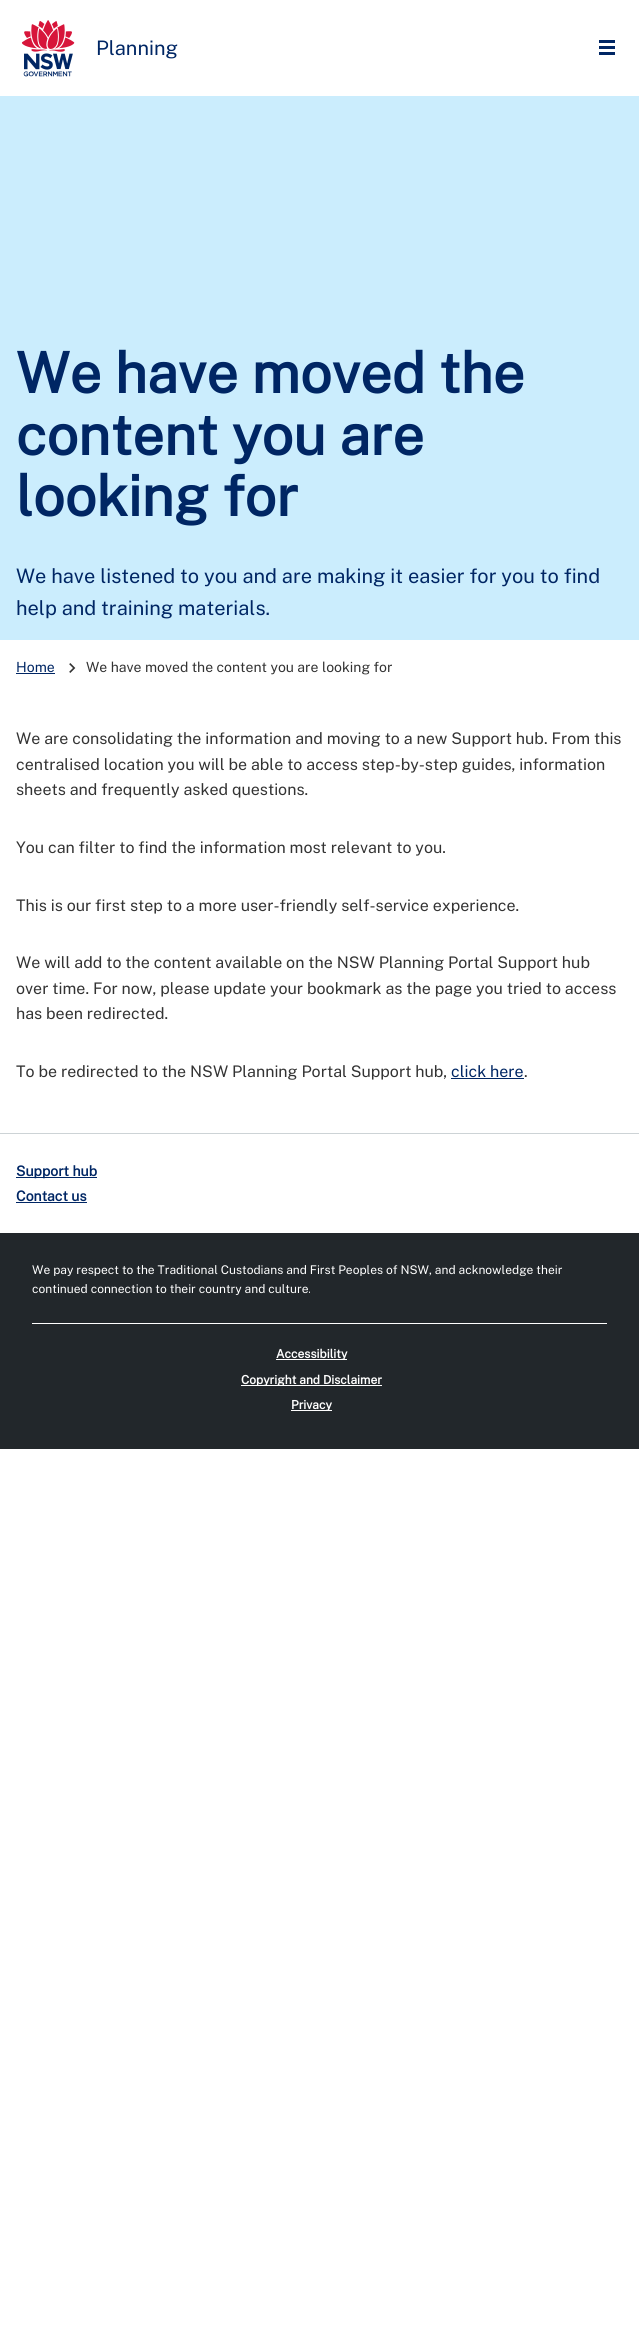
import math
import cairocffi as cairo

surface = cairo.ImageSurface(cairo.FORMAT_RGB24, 639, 2333)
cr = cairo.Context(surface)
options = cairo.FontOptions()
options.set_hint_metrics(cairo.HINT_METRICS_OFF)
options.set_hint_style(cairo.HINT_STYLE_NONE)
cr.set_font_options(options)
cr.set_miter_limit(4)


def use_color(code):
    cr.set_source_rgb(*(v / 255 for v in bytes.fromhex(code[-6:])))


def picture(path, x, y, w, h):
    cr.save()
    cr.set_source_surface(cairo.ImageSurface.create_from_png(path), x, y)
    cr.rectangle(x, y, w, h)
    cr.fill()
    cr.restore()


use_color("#ffffff")
cr.paint()
picture("img1.png", 21, 20, 54, 57)
cr.select_font_face("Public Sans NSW")
cr.set_font_size(20)
use_color("#002664")
cr.move_to(96, 55)
cr.show_text("Planning")
cr.rectangle(599, 40, 16, 3)
cr.fill()
cr.rectangle(599, 46, 16, 3)
cr.fill()
cr.rectangle(599, 52, 16, 3)
cr.fill()
use_color("#cbedfd")
cr.rectangle(0, 96, 639, 544)
cr.fill()
cr.select_font_face("Public Sans NSW", cairo.FONT_SLANT_NORMAL, cairo.FONT_WEIGHT_BOLD)
cr.set_font_size(56)
use_color("#002664")
cr.move_to(16, 393)
cr.show_text("We have moved the")
cr.move_to(16, 455)
cr.show_text("content you are")
cr.move_to(16, 516)
cr.show_text("looking for")
cr.select_font_face("Public Sans NSW")
cr.set_font_size(20)
cr.move_to(16, 583)
cr.show_text("We have listened to you and are making it easier for you to find")
cr.move_to(16, 615)
cr.show_text("help and training materials.")
cr.set_font_size(14)
cr.move_to(16, 672)
cr.show_text("Home")
cr.rectangle(16, 673, 39, 1)
cr.fill()
picture("img2.png", 69, 663, 7, 10)
use_color("#333333")
cr.move_to(86, 672)
cr.show_text("We have moved the content you are looking for")
cr.set_font_size(16)
cr.move_to(16, 744)
cr.show_text("We are consolidating the information and moving to a new Support hub. From this")
cr.move_to(16, 770)
cr.show_text("centralised location you will be able to access step-by-step guides, information")
cr.move_to(16, 795)
cr.show_text("sheets and frequently asked questions.")
cr.move_to(16, 853)
cr.show_text("You can filter to find the information most relevant to you.")
cr.move_to(16, 911)
cr.show_text("This is our first step to a more user-friendly self-service experience.")
cr.move_to(16, 968)
cr.show_text("We will add to the content available on the NSW Planning Portal Support hub")
cr.move_to(16, 994)
cr.show_text("over time. For now, please update your bookmark as the page you tried to access")
cr.move_to(16, 1019)
cr.show_text("has been redirected.")
cr.move_to(16, 1077)
cr.show_text("To be redirected to the NSW Planning Portal Support hub,")
use_color("#002664")
cr.move_to(451, 1077)
cr.show_text("click here")
cr.rectangle(451, 1078, 73, 1)
cr.fill()
use_color("#333333")
cr.move_to(524, 1077)
cr.show_text(".")
use_color("#cdd3d6")
cr.rectangle(0, 1133, 639, 1)
cr.fill()
use_color("#002664")
cr.rectangle(16, 1177, 81, 1)
cr.fill()
cr.select_font_face("Public Sans NSW", cairo.FONT_SLANT_NORMAL, cairo.FONT_WEIGHT_BOLD)
cr.set_font_size(14)
cr.move_to(16, 1176)
cr.show_text("Support hub")
cr.move_to(16, 1201)
cr.show_text("Contact us")
cr.rectangle(16, 1202, 71, 1)
cr.fill()
use_color("#22272b")
cr.rectangle(0, 1233, 639, 216)
cr.fill()
cr.select_font_face("Public Sans NSW")
cr.set_font_size(12)
use_color("#ffffff")
cr.move_to(32, 1274)
cr.show_text("We pay respect to the Traditional Custodians and First Peoples of NSW, and acknowledge their")
cr.move_to(32, 1293)
cr.show_text("continued connection to their country and culture.")
cr.rectangle(32, 1323, 575, 1)
cr.fill()
cr.rectangle(276, 1359, 71, 1)
cr.fill()
cr.select_font_face("Public Sans NSW", cairo.FONT_SLANT_NORMAL, cairo.FONT_WEIGHT_BOLD)
cr.move_to(276, 1358)
cr.show_text("Accessibility")
cr.rectangle(241, 1385, 141, 1)
cr.fill()
cr.move_to(241, 1384)
cr.show_text("Copyright and Disclaimer")
cr.rectangle(291, 1410, 41, 1)
cr.fill()
cr.move_to(291, 1409)
cr.show_text("Privacy")
surface.write_to_png("result.png")
